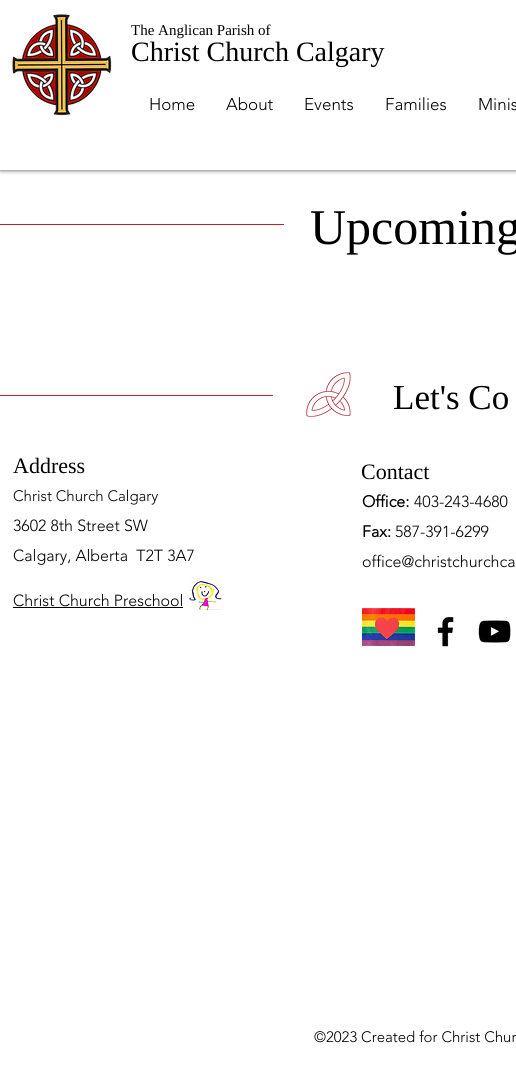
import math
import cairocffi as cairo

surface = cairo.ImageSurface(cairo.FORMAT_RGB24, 516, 1092)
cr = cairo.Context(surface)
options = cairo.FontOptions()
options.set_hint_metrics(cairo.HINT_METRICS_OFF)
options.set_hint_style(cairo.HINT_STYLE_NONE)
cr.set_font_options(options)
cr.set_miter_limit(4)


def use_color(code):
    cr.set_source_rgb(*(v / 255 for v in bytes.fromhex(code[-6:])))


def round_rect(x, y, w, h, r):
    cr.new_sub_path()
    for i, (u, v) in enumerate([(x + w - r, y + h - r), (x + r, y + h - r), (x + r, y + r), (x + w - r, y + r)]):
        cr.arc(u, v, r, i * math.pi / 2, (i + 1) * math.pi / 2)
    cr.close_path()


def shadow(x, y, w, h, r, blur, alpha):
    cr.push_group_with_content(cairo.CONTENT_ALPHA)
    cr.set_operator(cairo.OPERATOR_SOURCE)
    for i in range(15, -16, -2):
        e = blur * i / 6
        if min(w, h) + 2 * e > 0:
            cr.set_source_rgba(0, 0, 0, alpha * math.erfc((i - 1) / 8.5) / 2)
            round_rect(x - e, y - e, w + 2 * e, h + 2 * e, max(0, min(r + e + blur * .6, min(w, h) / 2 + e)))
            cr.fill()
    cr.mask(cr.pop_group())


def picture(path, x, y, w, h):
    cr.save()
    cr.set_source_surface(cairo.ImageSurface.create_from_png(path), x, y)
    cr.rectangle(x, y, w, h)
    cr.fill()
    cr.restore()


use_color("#ffffff")
cr.paint()
cr.save()
cr.rectangle(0, 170, 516, 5)
cr.clip()
use_color("#000000")
shadow(0, 0, 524, 170, 0, 2.5, 0.7)
cr.restore()
picture("img1.png", 12, 14, 100, 102)
cr.select_font_face("Liberation Serif")
cr.set_font_size(15)
use_color("#000000")
cr.move_to(131, 35)
cr.show_text("The Anglican Parish of")
cr.set_font_size(28)
cr.move_to(131, 61)
cr.show_text("Christ Church Calgary")
cr.select_font_face("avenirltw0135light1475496 Light")
cr.set_font_size(17)
cr.move_to(149, 110)
cr.show_text("Home")
cr.move_to(226, 110)
cr.show_text("About")
cr.move_to(304, 110)
cr.show_text("Events")
cr.move_to(385, 110)
cr.show_text("Families")
cr.move_to(478, 110)
cr.show_text("Minis")
use_color("#ca1e2f")
cr.rectangle(0, 224, 284, 1)
cr.fill()
cr.select_font_face("Liberation Serif")
cr.set_font_size(50)
use_color("#000000")
cr.move_to(310, 244)
cr.show_text("Upcoming")
use_color("#ca1e2f")
cr.rectangle(0, 395, 273, 1)
cr.fill()
picture("img2.png", 306, 372, 45, 45)
cr.set_font_size(35)
use_color("#000000")
cr.move_to(393, 409)
cr.show_text("Let's Co")
cr.set_font_size(22)
cr.move_to(13, 473)
cr.show_text("Address")
cr.select_font_face("avenirltw0135light1475496 Light")
cr.set_font_size(15)
cr.move_to(13, 501)
cr.show_text("Christ Church Calgary")
cr.set_font_size(16)
cr.move_to(13, 531)
cr.show_text("3602 8th Street SW")
cr.move_to(13, 561)
cr.show_text("Calgary, Alberta  T2T 3A7")
cr.move_to(13, 606)
cr.show_text("Christ Church Preschool")
cr.rectangle(13, 607, 170, 1)
cr.fill()
picture("img3.png", 189, 580, 33, 30)
cr.select_font_face("Liberation Serif")
cr.set_font_size(22)
cr.move_to(361, 479)
cr.show_text("Contact")
cr.select_font_face("avenirltw0135light1475496", cairo.FONT_SLANT_NORMAL, cairo.FONT_WEIGHT_BOLD)
cr.set_font_size(16)
cr.move_to(362, 507)
cr.show_text("Office:")
cr.select_font_face("avenirltw0135light1475496 Light")
cr.move_to(414, 507)
cr.show_text("403-243-4680")
cr.select_font_face("avenirltw0135light1475496", cairo.FONT_SLANT_NORMAL, cairo.FONT_WEIGHT_BOLD)
cr.move_to(362, 537)
cr.show_text("Fax:")
cr.select_font_face("avenirltw0135light1475496 Light")
cr.move_to(395, 537)
cr.show_text("587-391-6299")
cr.move_to(362, 567)
cr.show_text("office@christchurchca")
picture("img4.png", 362, 608, 53, 38)
picture("img5.png", 437, 617, 17, 30)
picture("img6.png", 478, 620, 33, 23)
cr.set_font_size(15)
cr.move_to(314, 1042)
cr.show_text("©2023 Created for Christ Chur")
surface.write_to_png("result.png")
